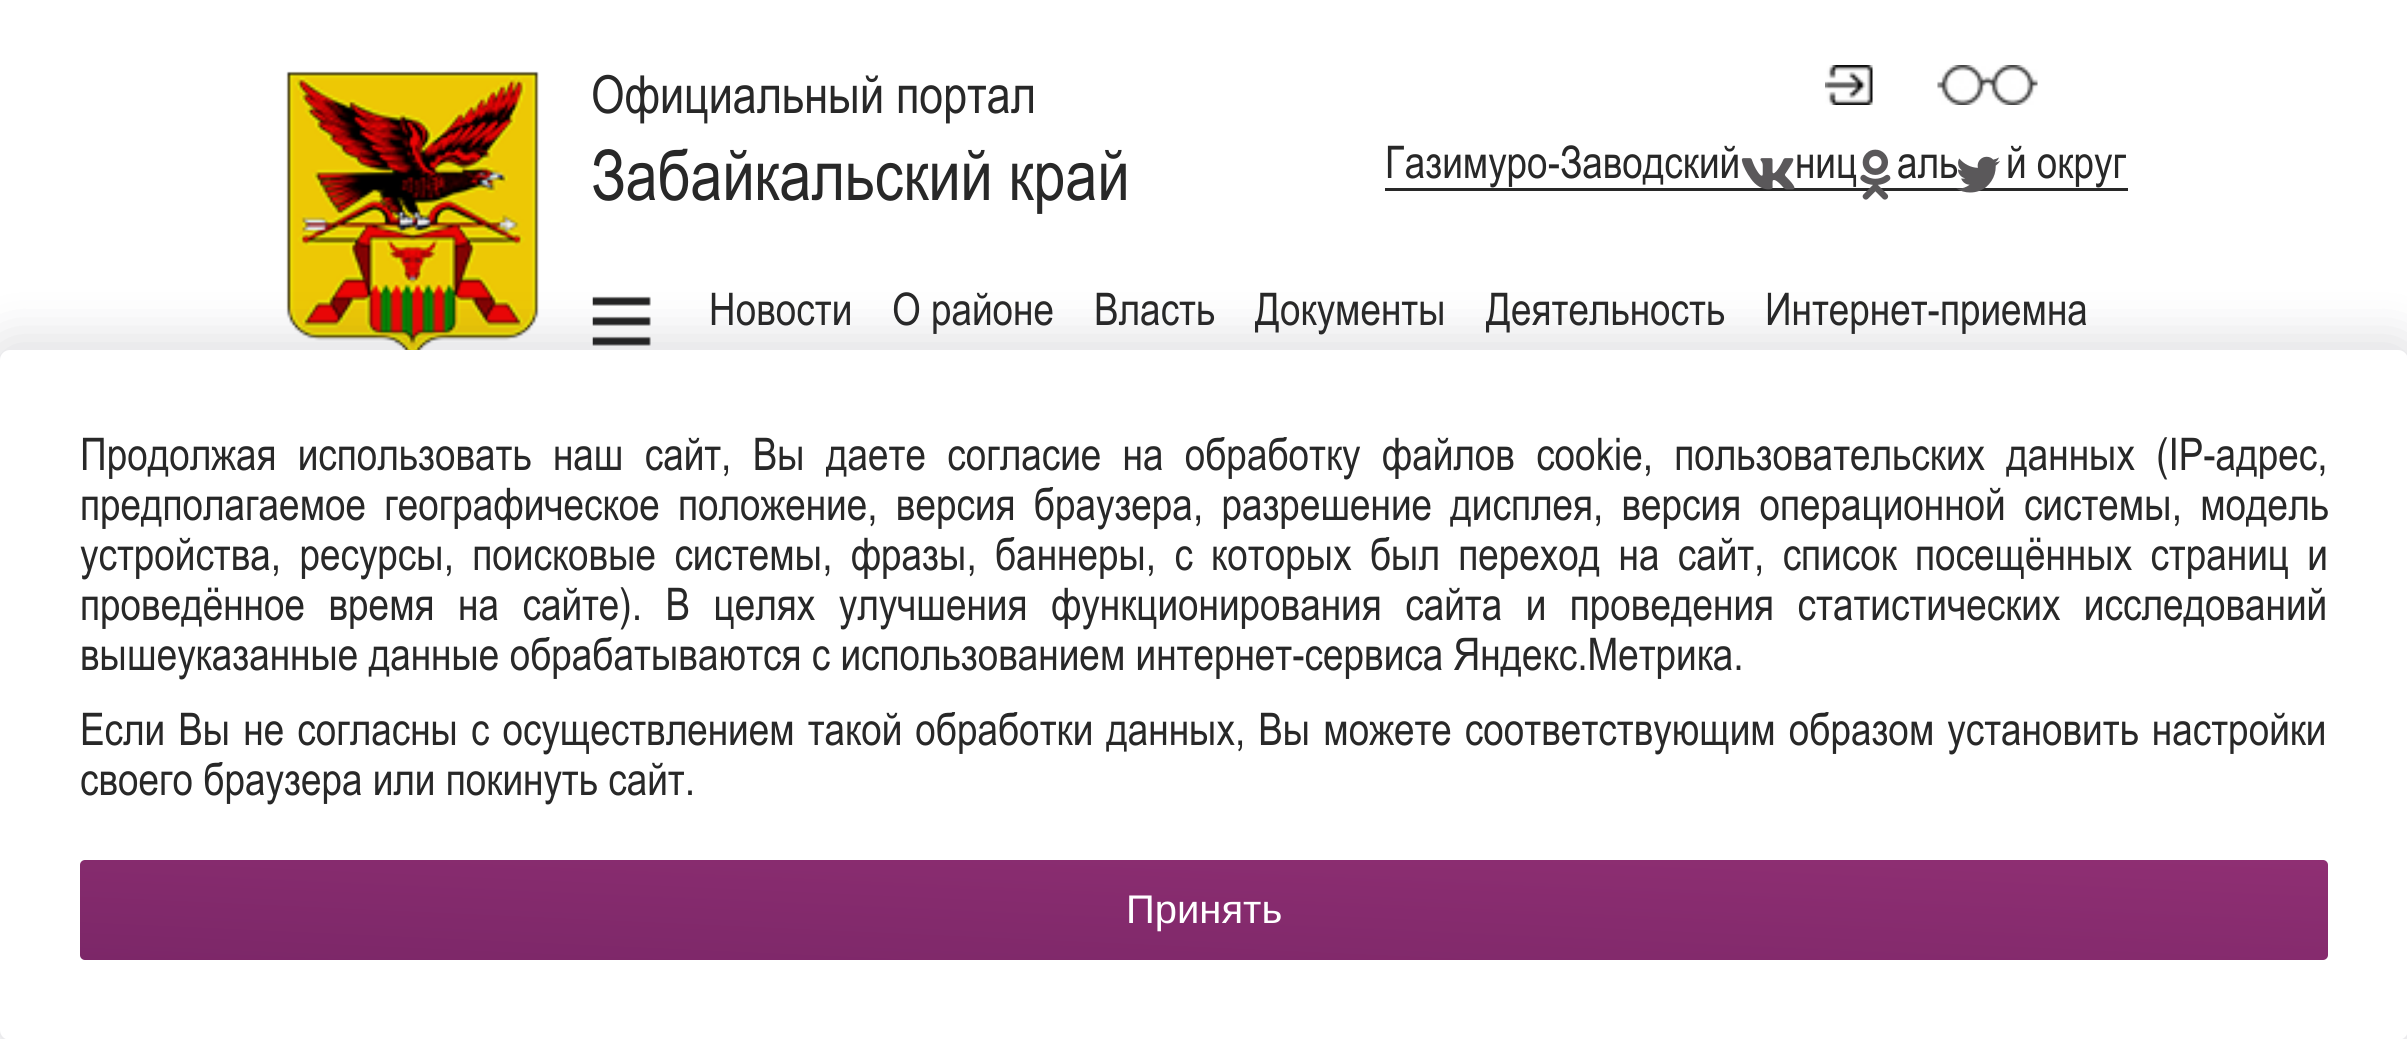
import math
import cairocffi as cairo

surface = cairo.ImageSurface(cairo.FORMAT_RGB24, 2407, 1039)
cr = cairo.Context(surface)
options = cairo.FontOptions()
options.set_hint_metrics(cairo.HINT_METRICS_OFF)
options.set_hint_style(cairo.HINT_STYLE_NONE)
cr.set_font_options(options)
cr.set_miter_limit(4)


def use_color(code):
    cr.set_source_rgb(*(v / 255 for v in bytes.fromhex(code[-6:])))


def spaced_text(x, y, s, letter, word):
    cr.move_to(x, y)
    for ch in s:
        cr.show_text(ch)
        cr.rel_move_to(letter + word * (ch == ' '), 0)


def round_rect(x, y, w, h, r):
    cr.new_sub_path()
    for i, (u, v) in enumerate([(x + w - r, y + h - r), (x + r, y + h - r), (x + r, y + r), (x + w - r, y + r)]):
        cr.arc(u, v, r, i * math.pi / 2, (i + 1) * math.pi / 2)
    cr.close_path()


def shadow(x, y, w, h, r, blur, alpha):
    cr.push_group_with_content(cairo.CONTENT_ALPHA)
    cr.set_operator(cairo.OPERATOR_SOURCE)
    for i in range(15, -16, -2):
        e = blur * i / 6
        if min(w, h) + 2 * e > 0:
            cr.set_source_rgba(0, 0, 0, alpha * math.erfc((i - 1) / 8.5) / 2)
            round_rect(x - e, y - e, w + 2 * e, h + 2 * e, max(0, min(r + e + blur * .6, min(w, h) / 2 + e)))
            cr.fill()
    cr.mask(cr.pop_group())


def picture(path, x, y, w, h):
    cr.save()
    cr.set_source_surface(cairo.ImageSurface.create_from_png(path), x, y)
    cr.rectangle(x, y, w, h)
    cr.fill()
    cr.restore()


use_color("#ffffff")
cr.paint()
picture("img1.png", 286, 71, 253, 279)
picture("img2.png", 1825, 65, 48, 40)
picture("img3.png", 1937, 65, 101, 40)
use_color("#282828")
cr.rectangle(1385, 188, 743, 3)
cr.fill()
picture("img4.png", 1741, 158, 54, 32)
picture("img5.png", 1860, 149, 31, 51)
cr.select_font_face("Arial")
cr.set_font_size(45)
cr.move_to(1897, 178)
cr.show_text("аль")
picture("img6.png", 1956, 156, 44, 37)
cr.set_font_size(52.5)
cr.move_to(591, 113)
cr.show_text("Официальный портал")
cr.set_font_size(70)
cr.move_to(591, 200)
cr.show_text("Забайкальский край")
cr.set_font_size(45)
cr.move_to(1385, 178)
cr.show_text("Газимуро-Заводский")
cr.move_to(1795, 178)
cr.show_text("ниц")
cr.move_to(2006, 178)
cr.show_text("й округ")
picture("img7.png", 592, 296, 59, 50)
cr.move_to(709, 325)
cr.show_text("Новости")
cr.move_to(892, 325)
cr.show_text("О районе")
cr.move_to(1094, 325)
cr.show_text("Власть")
cr.move_to(1255, 325)
cr.show_text("Документы")
cr.move_to(1486, 325)
cr.show_text("Деятельность")
cr.move_to(1765, 325)
cr.show_text("Интернет-приемна")
use_color("#2f3444")
shadow(-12, 338, 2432, 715, 23, 25, 0.16)
use_color("#ffffff")
round_rect(0, 350, 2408, 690, 10)
cr.fill()
use_color("#282828")
spaced_text(80, 470, "Продолжая использовать наш сайт, Вы даете согласие на обработку файлов cookie, пользовательских данных (IP-адрес,", 0, 11)
spaced_text(80, 520, "предполагаемое географическое положение, версия браузера, разрешение дисплея, версия операционной системы, модель", 0, 8)
spaced_text(80, 570, "устройства, ресурсы, поисковые системы, фразы, баннеры, с которых был переход на сайт, список посещённых страниц и", 0, 8)
spaced_text(80, 620, "проведённое время на сайте). В целях улучшения функционирования сайта и проведения статистических исследований", 0, 13.25)
cr.move_to(80, 670)
cr.show_text("вышеуказанные данные обрабатываются с использованием интернет-сервиса Яндекс.Метрика.")
spaced_text(80, 745, "Если Вы не согласны с осуществлением такой обработки данных, Вы можете соответствующим образом установить настройки", 0, 2.75)
cr.move_to(80, 795)
cr.show_text("своего браузера или покинуть сайт.")
gradient = cairo.LinearGradient(1208, 810, 1199, 1010)
gradient.add_color_stop_rgba(0, 0.561, 0.184, 0.451, 1)
gradient.add_color_stop_rgba(1, 0.486, 0.153, 0.408, 1)
cr.set_source(gradient)
round_rect(80, 860, 2248, 100, 5)
cr.fill()
cr.select_font_face("Liberation Sans")
cr.set_font_size(40)
use_color("#ffffff")
cr.move_to(1126, 923)
cr.show_text("Принять")
surface.write_to_png("result.png")
